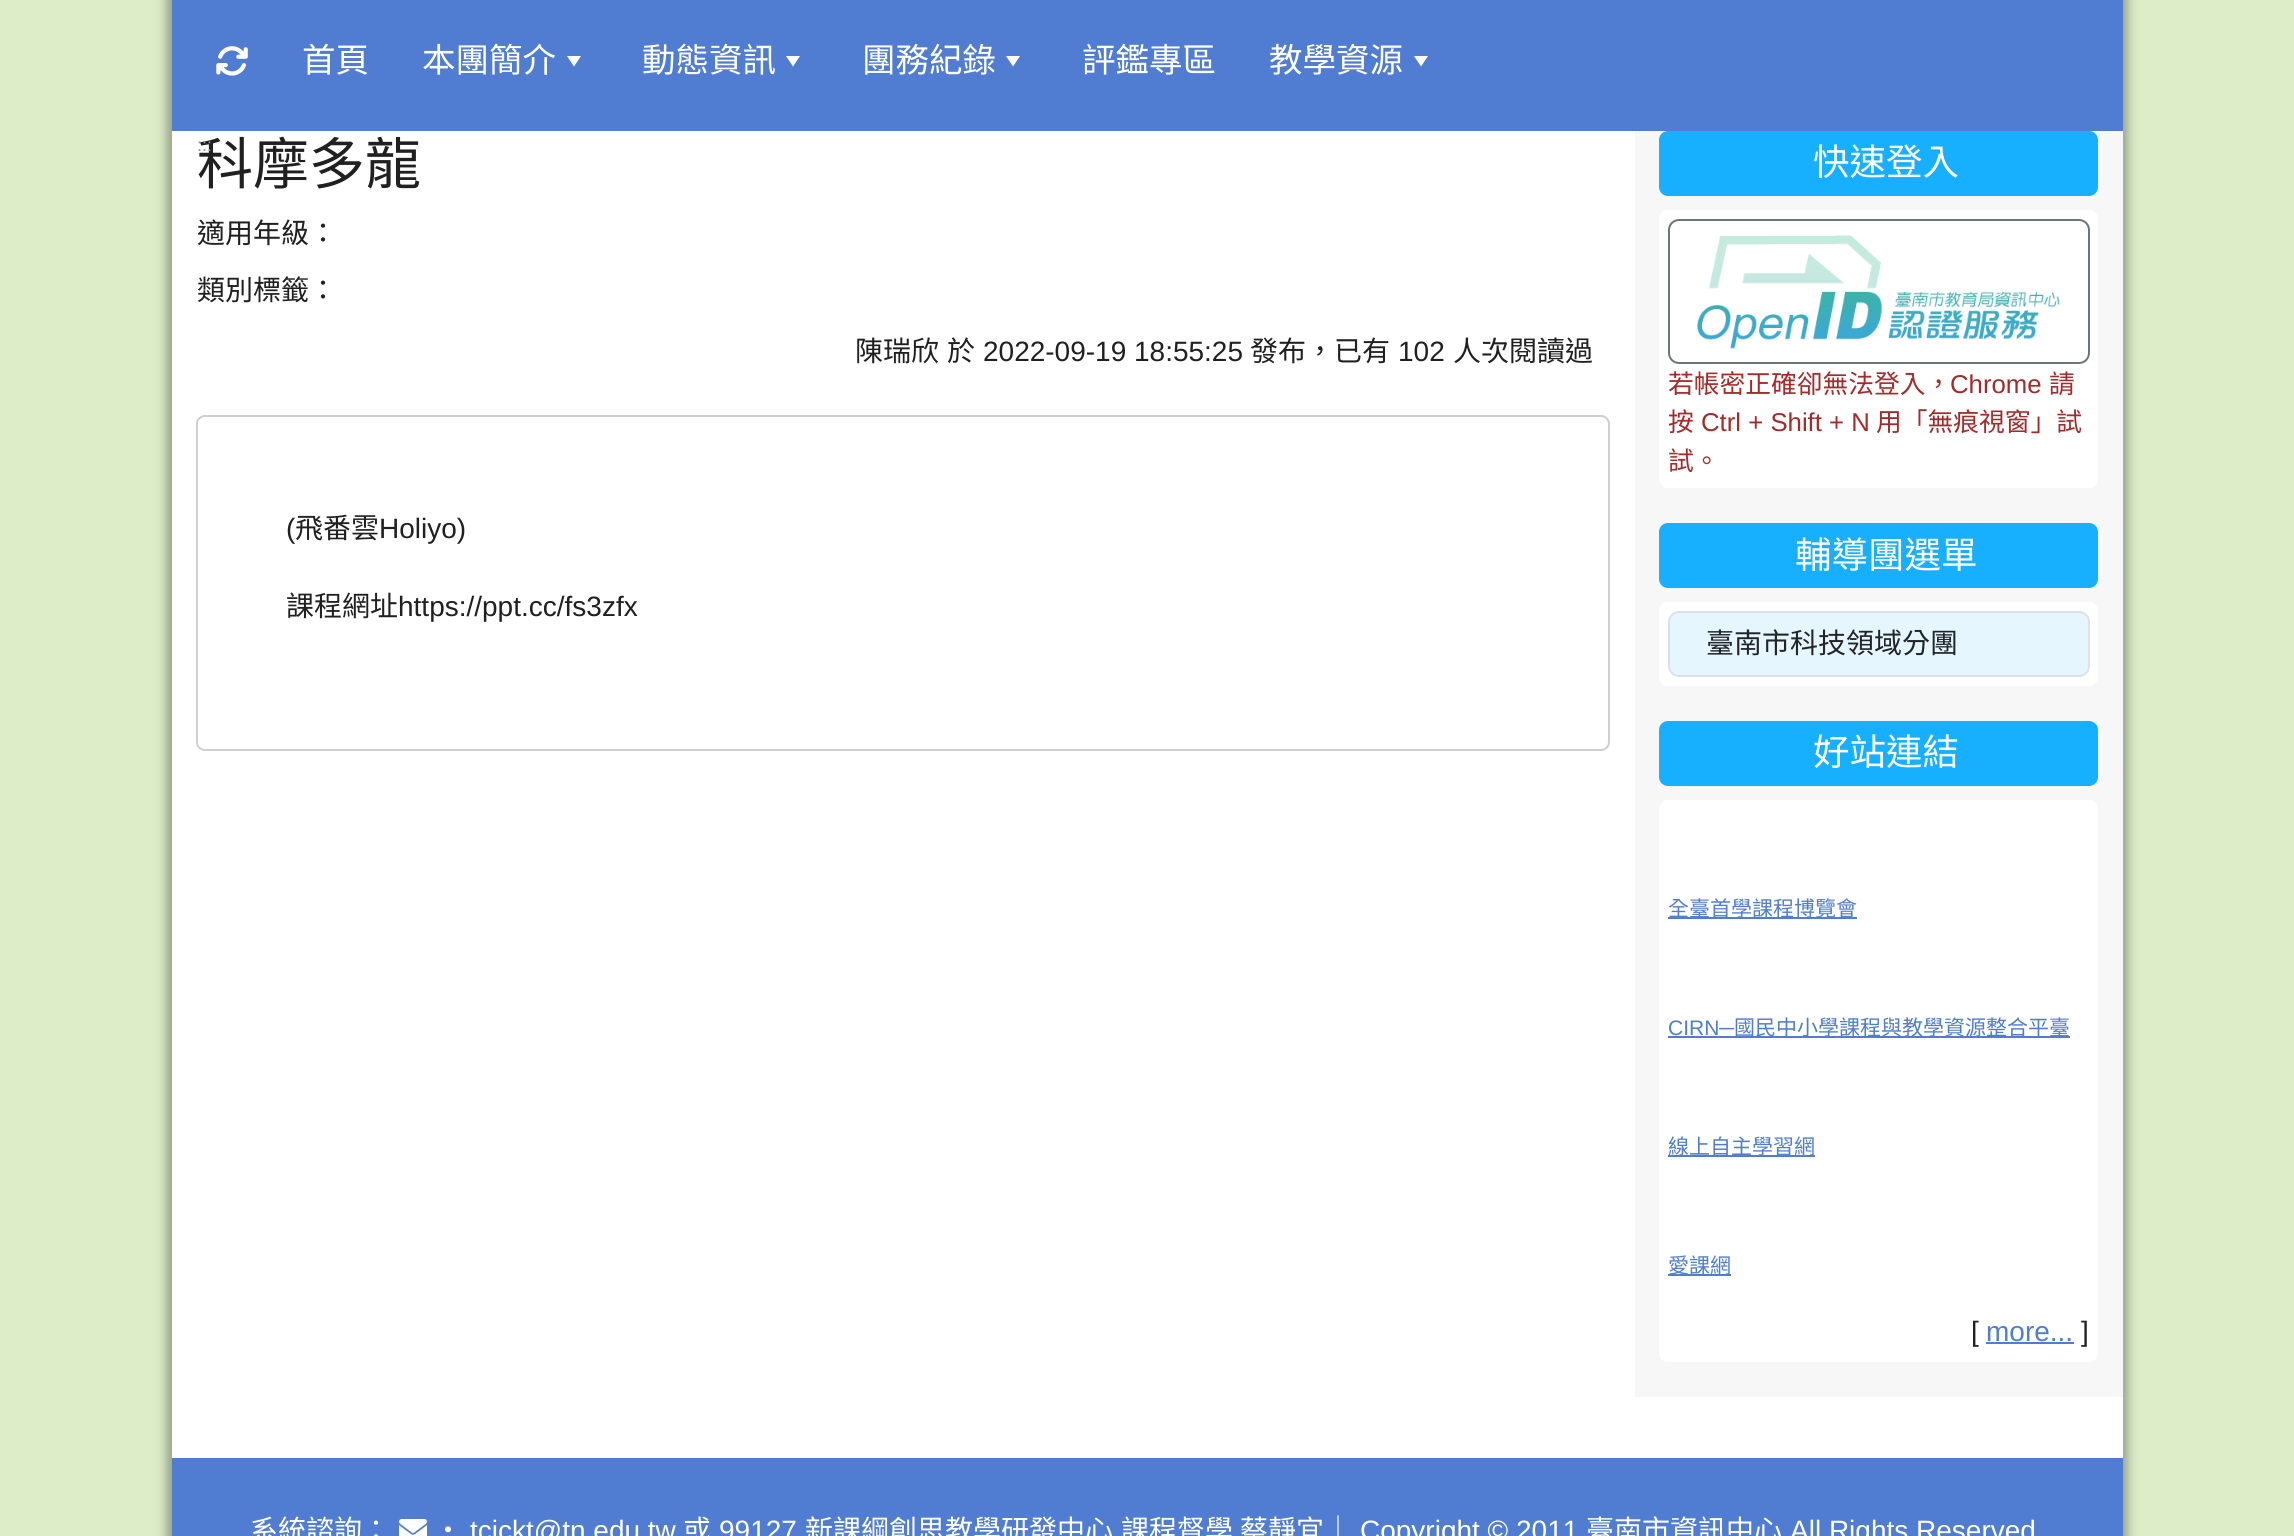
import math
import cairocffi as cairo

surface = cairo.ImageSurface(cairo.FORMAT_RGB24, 2294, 1536)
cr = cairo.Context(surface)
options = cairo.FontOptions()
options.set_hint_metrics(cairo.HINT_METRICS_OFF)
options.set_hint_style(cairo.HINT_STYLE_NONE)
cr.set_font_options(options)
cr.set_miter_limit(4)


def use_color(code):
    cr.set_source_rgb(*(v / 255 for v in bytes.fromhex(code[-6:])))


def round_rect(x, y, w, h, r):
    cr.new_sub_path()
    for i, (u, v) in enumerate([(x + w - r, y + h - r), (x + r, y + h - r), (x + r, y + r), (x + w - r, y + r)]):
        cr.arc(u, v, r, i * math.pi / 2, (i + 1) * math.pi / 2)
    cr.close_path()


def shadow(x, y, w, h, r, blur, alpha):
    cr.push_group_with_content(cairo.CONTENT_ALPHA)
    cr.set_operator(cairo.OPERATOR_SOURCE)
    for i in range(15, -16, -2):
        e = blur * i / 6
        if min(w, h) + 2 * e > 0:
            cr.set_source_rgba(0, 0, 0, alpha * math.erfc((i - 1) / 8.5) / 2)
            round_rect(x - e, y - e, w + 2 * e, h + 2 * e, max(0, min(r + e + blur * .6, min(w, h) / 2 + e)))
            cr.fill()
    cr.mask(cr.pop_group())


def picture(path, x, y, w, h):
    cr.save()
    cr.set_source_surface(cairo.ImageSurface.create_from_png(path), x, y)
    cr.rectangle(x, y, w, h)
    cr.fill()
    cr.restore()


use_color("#dcedc8")
cr.paint()
use_color("#323232")
shadow(166, -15, 1962, 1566, 0, 5, 0.4)
use_color("#ffffff")
cr.rectangle(172, 131, 1951, 1327)
cr.fill()
use_color("#507dd2")
cr.rectangle(172, 0, 1951, 131)
cr.fill()
picture("img1.png", 216, 46, 32, 30)
cr.select_font_face("Noto Sans CJK TC")
cr.set_font_size(33.5)
use_color("#ffffff")
cr.move_to(302, 72)
cr.show_text("首頁")
cr.move_to(422, 72)
cr.show_text("本團簡介")
cr.new_path()
cr.move_to(567, 56)
cr.line_to(581, 56)
cr.line_to(574, 66.5)
cr.close_path()
cr.fill()
cr.move_to(642, 72)
cr.show_text("動態資訊")
cr.new_path()
cr.move_to(786, 56)
cr.line_to(800, 56)
cr.line_to(793, 66.5)
cr.close_path()
cr.fill()
cr.move_to(862, 72)
cr.show_text("團務紀錄")
cr.new_path()
cr.move_to(1006, 56)
cr.line_to(1020, 56)
cr.line_to(1013, 66.5)
cr.close_path()
cr.fill()
cr.move_to(1082, 72)
cr.show_text("評鑑專區")
cr.move_to(1269, 72)
cr.show_text("教學資源")
cr.new_path()
cr.move_to(1414, 56)
cr.line_to(1428, 56)
cr.line_to(1421, 66.5)
cr.close_path()
cr.fill()
cr.set_font_size(56)
use_color("#202020")
cr.move_to(197, 184)
cr.show_text("科摩多龍")
cr.set_font_size(28)
cr.move_to(197, 243)
cr.show_text("適用年級：")
cr.move_to(197, 300)
cr.show_text("類別標籤：")
cr.move_to(855, 361)
cr.show_text("陳瑞欣")
cr.move_to(947, 361)
cr.show_text("於")
cr.select_font_face("Liberation Sans")
cr.move_to(983, 361)
cr.show_text("2022-09-19 18:55:25")
cr.select_font_face("Noto Sans CJK TC")
cr.move_to(1250, 361)
cr.show_text("發布，已有")
cr.select_font_face("Liberation Sans")
cr.move_to(1398, 361)
cr.show_text("102")
cr.select_font_face("Noto Sans CJK TC")
cr.move_to(1453, 361)
cr.show_text("人次閱讀過")
round_rect(197, 416, 1412, 334, 8)
use_color("#cfcfcf")
cr.stroke()
cr.select_font_face("Liberation Sans")
use_color("#202020")
cr.move_to(286, 538)
cr.show_text("(")
cr.select_font_face("Noto Sans CJK TC")
cr.move_to(295, 538)
cr.show_text("飛番雲")
cr.select_font_face("Liberation Sans")
cr.move_to(379, 538)
cr.show_text("Holiyo)")
cr.select_font_face("Noto Sans CJK TC")
cr.move_to(286, 616)
cr.show_text("課程網址")
cr.select_font_face("Liberation Sans")
cr.move_to(398, 616)
cr.show_text("https://ppt.cc/fs3zfx")
cr.set_font_size(18)
use_color("#909090")
cr.move_to(197, 151)
cr.show_text(":::")
use_color("#f7f7f7")
cr.rectangle(1635, 131, 488, 1266)
cr.fill()
use_color("#17afff")
round_rect(1659, 131, 439, 65, 9)
cr.fill()
cr.select_font_face("Noto Sans CJK TC")
cr.set_font_size(36.5)
use_color("#ffffff")
cr.move_to(1813, 175)
cr.show_text("快速登入")
round_rect(1659, 210, 439, 278, 9)
cr.fill()
round_rect(1669, 220, 420, 143, 10)
use_color("#6c757d")
cr.stroke()
picture("img2.png", 1697, 235, 363, 114)
cr.set_font_size(25.75)
use_color("#a52a2a")
cr.move_to(1668, 393)
cr.show_text("若帳密正確卻無法登入，")
cr.select_font_face("Liberation Sans")
cr.move_to(1950, 393)
cr.show_text("Chrome")
cr.select_font_face("Noto Sans CJK TC")
cr.move_to(2049, 393)
cr.show_text("請")
cr.move_to(1668, 431)
cr.show_text("按")
cr.select_font_face("Liberation Sans")
cr.move_to(1701, 431)
cr.show_text("Ctrl + Shift + N")
cr.select_font_face("Noto Sans CJK TC")
cr.move_to(1876, 431)
cr.show_text("用「無痕視窗」試")
cr.move_to(1668, 470)
cr.show_text("試。")
use_color("#17afff")
round_rect(1659, 523, 439, 65, 9)
cr.fill()
cr.set_font_size(36.5)
use_color("#ffffff")
cr.move_to(1795, 568)
cr.show_text("輔導團選單")
round_rect(1659, 602, 439, 84, 9)
cr.fill()
use_color("#e5f6ff")
round_rect(1669, 612, 420, 64, 10)
cr.fill_preserve()
use_color("#dee2e6")
cr.stroke()
cr.set_font_size(28)
use_color("#212529")
cr.move_to(1706, 653)
cr.show_text("臺南市科技領域分團")
use_color("#17afff")
round_rect(1659, 721, 439, 65, 9)
cr.fill()
cr.set_font_size(36.5)
use_color("#ffffff")
cr.move_to(1813, 765)
cr.show_text("好站連結")
round_rect(1659, 800, 439, 562, 9)
cr.fill()
use_color("#507dd2")
cr.rectangle(1668, 917, 189, 2)
cr.fill()
cr.set_font_size(21)
cr.move_to(1668, 916)
cr.show_text("全臺首學課程博覽會")
cr.select_font_face("Liberation Sans")
cr.move_to(1668, 1035)
cr.show_text("CIRN─")
cr.rectangle(1668, 1036, 402, 2)
cr.fill()
cr.select_font_face("Noto Sans CJK TC")
cr.move_to(1734, 1035)
cr.show_text("國民中小學課程與教學資源整合平臺")
cr.rectangle(1668, 1155, 147, 2)
cr.fill()
cr.move_to(1668, 1154)
cr.show_text("線上自主學習網")
cr.rectangle(1668, 1274, 63, 2)
cr.fill()
cr.move_to(1668, 1273)
cr.show_text("愛課網")
cr.select_font_face("Liberation Sans")
cr.set_font_size(28)
use_color("#202020")
cr.move_to(1971, 1341)
cr.show_text("[")
use_color("#507dd2")
cr.move_to(1986, 1341)
cr.show_text("more...")
cr.rectangle(1986, 1342, 88, 2)
cr.fill()
use_color("#202020")
cr.move_to(2081, 1341)
cr.show_text("]")
use_color("#507dd2")
cr.rectangle(172, 1458, 1951, 78)
cr.fill()
cr.select_font_face("Noto Sans CJK TC")
use_color("#ffffff")
cr.move_to(250, 1540)
cr.show_text("系統諮詢：")
picture("img3.png", 399, 1519, 28, 17)
cr.move_to(434, 1540)
cr.show_text("‧")
cr.select_font_face("Liberation Sans")
cr.move_to(470, 1540)
cr.show_text("tcickt@tn.edu.tw")
cr.select_font_face("Noto Sans CJK TC")
cr.move_to(683, 1540)
cr.show_text("或")
cr.select_font_face("Liberation Sans")
cr.move_to(719, 1540)
cr.show_text("99127")
cr.select_font_face("Noto Sans CJK TC")
cr.move_to(805, 1540)
cr.show_text("新課綱創思教學研發中心")
cr.move_to(1121, 1540)
cr.show_text("課程督學")
cr.move_to(1240, 1540)
cr.show_text("蔡靜宜｜")
cr.select_font_face("Liberation Sans")
cr.move_to(1360, 1540)
cr.show_text("Copyright © 2011")
cr.select_font_face("Noto Sans CJK TC")
cr.move_to(1586, 1540)
cr.show_text("臺南市資訊中心")
cr.select_font_face("Liberation Sans")
cr.move_to(1790, 1540)
cr.show_text("All Rights Reserved")
surface.write_to_png("result.png")
